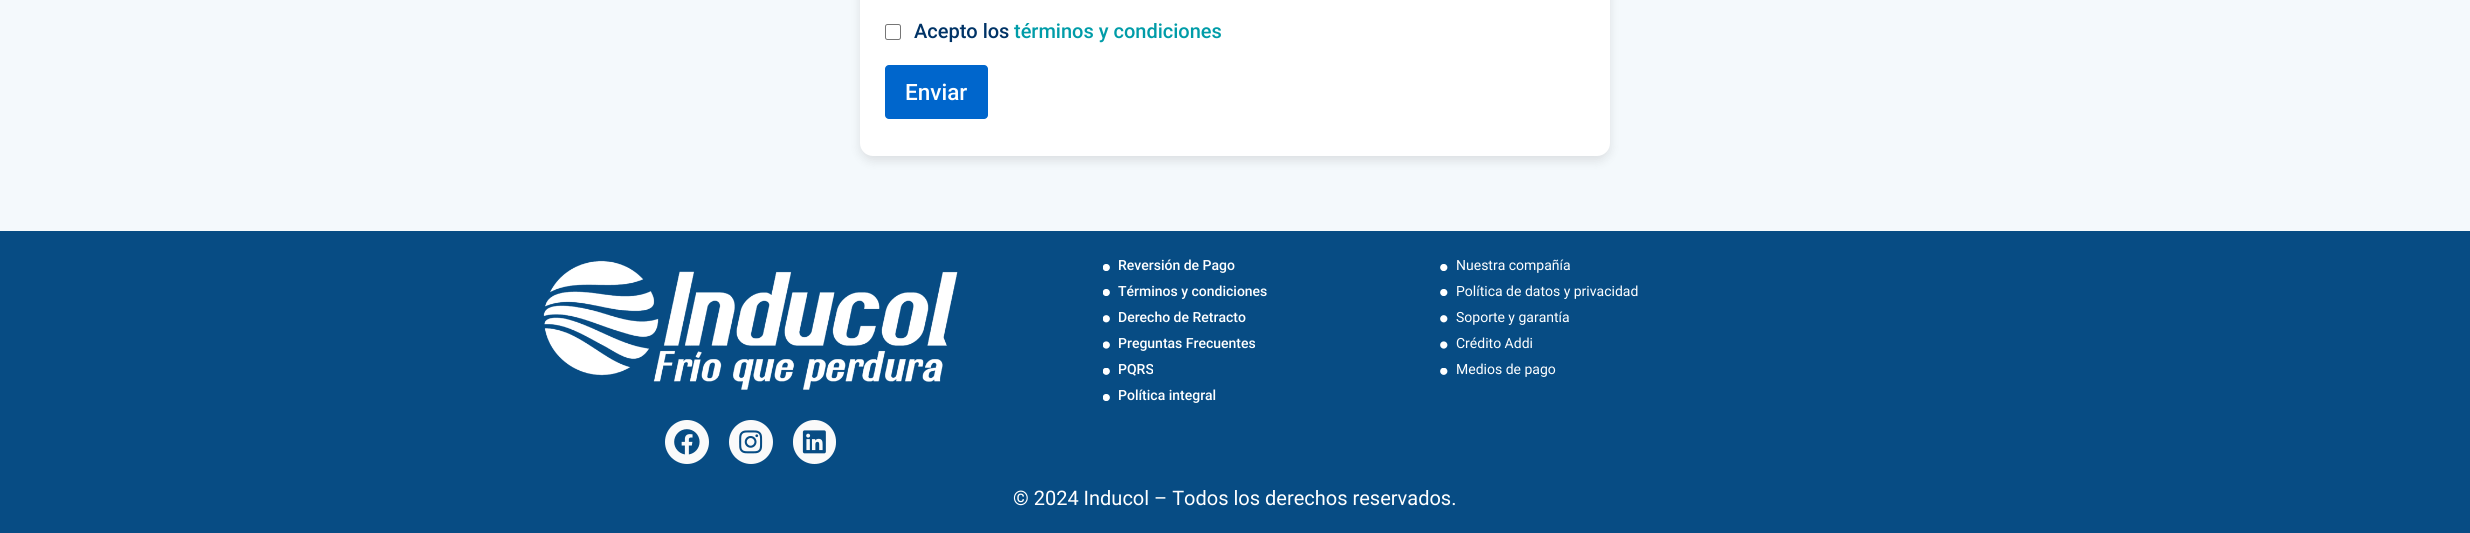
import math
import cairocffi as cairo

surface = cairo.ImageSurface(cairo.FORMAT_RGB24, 2470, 533)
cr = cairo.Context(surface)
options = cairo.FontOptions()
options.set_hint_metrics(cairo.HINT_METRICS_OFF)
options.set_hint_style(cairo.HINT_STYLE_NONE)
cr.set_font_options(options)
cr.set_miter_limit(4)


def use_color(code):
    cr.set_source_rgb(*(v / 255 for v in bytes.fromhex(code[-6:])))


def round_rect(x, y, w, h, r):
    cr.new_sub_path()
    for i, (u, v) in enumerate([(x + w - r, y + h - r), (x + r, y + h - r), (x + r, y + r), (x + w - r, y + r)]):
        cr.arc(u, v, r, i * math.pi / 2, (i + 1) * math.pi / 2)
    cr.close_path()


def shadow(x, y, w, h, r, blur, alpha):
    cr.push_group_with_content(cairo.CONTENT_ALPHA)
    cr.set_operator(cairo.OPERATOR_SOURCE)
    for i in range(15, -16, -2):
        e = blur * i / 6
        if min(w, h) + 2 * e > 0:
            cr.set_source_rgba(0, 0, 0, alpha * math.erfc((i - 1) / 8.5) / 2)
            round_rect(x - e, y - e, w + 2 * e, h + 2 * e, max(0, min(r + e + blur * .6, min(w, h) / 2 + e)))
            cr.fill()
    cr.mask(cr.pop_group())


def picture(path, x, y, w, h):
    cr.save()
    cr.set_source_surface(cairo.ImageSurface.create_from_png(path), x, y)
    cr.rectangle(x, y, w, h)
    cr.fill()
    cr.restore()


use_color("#f4f9fc")
cr.paint()
use_color("#000000")
shadow(860, -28, 750, 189, 13, 5, 0.1)
use_color("#ffffff")
round_rect(860, -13, 750, 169, 13)
cr.fill()
round_rect(885.5, 24.5, 15, 15, 2)
use_color("#767676")
cr.set_line_width(1)
cr.stroke()
cr.select_font_face("Roboto Medium")
cr.set_font_size(20)
use_color("#003366")
cr.move_to(914, 38)
cr.show_text("Acepto los")
use_color("#009ca8")
cr.move_to(1014, 38)
cr.show_text("términos y condiciones")
use_color("#0066cc")
round_rect(885, 65, 103, 54, 4)
cr.fill()
cr.set_font_size(22.5)
use_color("#ffffff")
cr.move_to(905, 100)
cr.show_text("Enviar")
use_color("#074c84")
cr.rectangle(0, 231, 2470, 302)
cr.fill()
picture("img1.png", 543, 260, 415, 130)
use_color("#fafafa")
cr.arc(687, 442, 22, 0, 2 * math.pi)
cr.fill()
picture("img2.png", 674, 429, 26, 26)
cr.arc(751, 442, 22, 0, 2 * math.pi)
cr.fill()
picture("img3.png", 739, 430, 24, 24)
round_rect(793, 420, 43, 44, 21.5)
cr.fill()
picture("img4.png", 802, 430, 24, 24)
picture("img5.png", 1103, 264, 7, 7)
cr.set_font_size(14)
use_color("#ffffff")
cr.move_to(1118, 270)
cr.show_text("Reversión de Pago")
picture("img5.png", 1103, 289, 7, 7)
cr.move_to(1118, 296)
cr.show_text("Términos y condiciones")
picture("img6.png", 1103, 315, 7, 8)
cr.move_to(1118, 322)
cr.show_text("Derecho de Retracto")
picture("img7.png", 1103, 341, 7, 8)
cr.move_to(1118, 348)
cr.show_text("Preguntas Frecuentes")
picture("img8.png", 1103, 368, 7, 7)
cr.move_to(1118, 374)
cr.show_text("PQRS")
picture("img5.png", 1103, 394, 7, 7)
cr.move_to(1118, 400)
cr.show_text("Política integral")
picture("img9.png", 1440, 264, 8, 7)
cr.select_font_face("Roboto")
cr.move_to(1456, 270)
cr.show_text("Nuestra compañía")
picture("img9.png", 1440, 289, 8, 7)
cr.move_to(1456, 296)
cr.show_text("Política de datos y privacidad")
picture("img10.png", 1440, 315, 8, 8)
cr.move_to(1456, 322)
cr.show_text("Soporte y garantía")
picture("img11.png", 1440, 341, 8, 8)
cr.move_to(1456, 348)
cr.show_text("Crédito Addi")
picture("img12.png", 1440, 368, 8, 7)
cr.move_to(1456, 374)
cr.show_text("Medios de pago")
cr.set_font_size(20)
cr.move_to(1013, 505)
cr.show_text("© 2024 Inducol – Todos los derechos reservados.")
surface.write_to_png("result.png")
